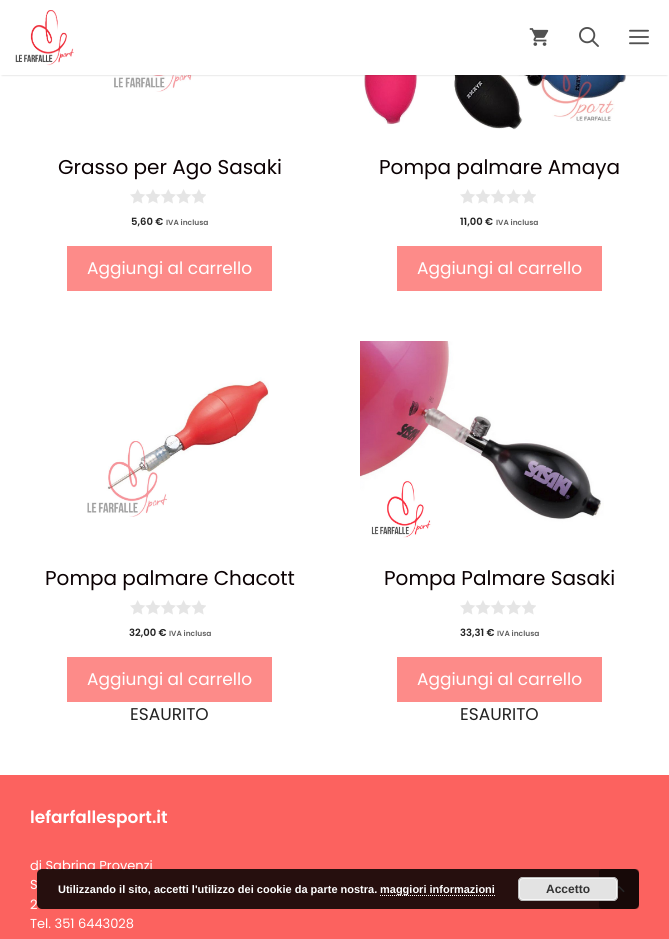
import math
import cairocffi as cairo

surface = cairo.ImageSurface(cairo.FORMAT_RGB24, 669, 939)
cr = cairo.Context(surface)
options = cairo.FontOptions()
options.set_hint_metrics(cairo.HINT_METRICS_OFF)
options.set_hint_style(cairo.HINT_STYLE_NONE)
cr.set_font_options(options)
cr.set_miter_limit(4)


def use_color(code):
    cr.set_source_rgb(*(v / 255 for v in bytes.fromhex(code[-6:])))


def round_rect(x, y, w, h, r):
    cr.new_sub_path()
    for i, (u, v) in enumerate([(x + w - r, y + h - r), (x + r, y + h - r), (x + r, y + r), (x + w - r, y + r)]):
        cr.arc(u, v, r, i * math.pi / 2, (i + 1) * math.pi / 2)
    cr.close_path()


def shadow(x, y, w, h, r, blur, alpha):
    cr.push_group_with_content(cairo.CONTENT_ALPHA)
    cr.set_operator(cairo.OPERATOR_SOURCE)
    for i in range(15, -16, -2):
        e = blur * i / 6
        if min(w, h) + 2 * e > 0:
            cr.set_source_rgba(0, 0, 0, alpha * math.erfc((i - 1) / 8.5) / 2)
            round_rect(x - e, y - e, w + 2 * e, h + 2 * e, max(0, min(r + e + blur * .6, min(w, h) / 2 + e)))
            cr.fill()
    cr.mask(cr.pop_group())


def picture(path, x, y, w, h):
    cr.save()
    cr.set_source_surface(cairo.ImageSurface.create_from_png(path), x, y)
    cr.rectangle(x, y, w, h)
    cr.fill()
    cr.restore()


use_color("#ffffff")
cr.paint()
picture("img5.png", 114, 75, 88, 17)
picture("img7.png", 364, 75, 262, 55)
use_color("#000000")
shadow(2, 4, 665, 71, 0, 1, 0.2)
use_color("#ffffff")
cr.rectangle(0, 2, 669, 73)
cr.fill()
picture("img1.png", 15, 10, 59, 56)
picture("img2.png", 529, 28, 20, 18)
picture("img3.png", 579, 27, 20, 20)
picture("img4.png", 629, 29, 20, 16)
cr.select_font_face("Poppins")
cr.set_font_size(20)
use_color("#0a0002")
cr.move_to(58, 174)
cr.show_text("Grasso per Ago Sasaki")
picture("img6.png", 130, 189, 76, 15)
cr.select_font_face("Poppins SemiBold")
cr.set_font_size(10)
use_color("#222222")
cr.move_to(131, 225)
cr.show_text("5,60 €")
cr.set_font_size(7.5)
use_color("#606060")
cr.move_to(166, 225)
cr.show_text("IVA inclusa")
use_color("#fd8b89")
cr.rectangle(67, 246, 205, 45)
cr.fill()
cr.select_font_face("Poppins")
cr.set_font_size(17)
use_color("#ffffff")
cr.move_to(87, 274)
cr.show_text("Aggiungi al carrello")
cr.set_font_size(20)
use_color("#0a0002")
cr.move_to(379, 174)
cr.show_text("Pompa palmare Amaya")
picture("img6.png", 460, 189, 76, 15)
cr.select_font_face("Poppins SemiBold")
cr.set_font_size(10)
use_color("#222222")
cr.move_to(460, 225)
cr.show_text("11,00 €")
cr.set_font_size(7.5)
use_color("#606060")
cr.move_to(496, 225)
cr.show_text("IVA inclusa")
use_color("#fd8b89")
cr.rectangle(397, 246, 205, 45)
cr.fill()
cr.select_font_face("Poppins")
cr.set_font_size(17)
use_color("#ffffff")
cr.move_to(417, 274)
cr.show_text("Aggiungi al carrello")
picture("img8.png", 87, 377, 182, 140)
cr.set_font_size(20)
use_color("#0a0002")
cr.move_to(45, 585)
cr.show_text("Pompa palmare Chacott")
picture("img6.png", 130, 600, 76, 15)
cr.select_font_face("Poppins SemiBold")
cr.set_font_size(10)
use_color("#222222")
cr.move_to(129, 636)
cr.show_text("32,00 €")
cr.set_font_size(7.5)
use_color("#606060")
cr.move_to(169, 636)
cr.show_text("IVA inclusa")
use_color("#fd8b89")
cr.rectangle(67, 657, 205, 45)
cr.fill()
cr.select_font_face("Poppins")
cr.set_font_size(17)
use_color("#ffffff")
cr.move_to(87, 685)
cr.show_text("Aggiungi al carrello")
use_color("#222222")
cr.move_to(130, 720)
cr.show_text("ESAURITO")
picture("img9.png", 360, 341, 244, 197)
cr.set_font_size(20)
use_color("#0a0002")
cr.move_to(384, 585)
cr.show_text("Pompa Palmare Sasaki")
picture("img6.png", 460, 600, 76, 15)
cr.select_font_face("Poppins SemiBold")
cr.set_font_size(10)
use_color("#222222")
cr.move_to(460, 636)
cr.show_text("33,31 €")
cr.set_font_size(7.5)
use_color("#606060")
cr.move_to(497, 636)
cr.show_text("IVA inclusa")
use_color("#fd8b89")
cr.rectangle(397, 657, 205, 45)
cr.fill()
cr.select_font_face("Poppins")
cr.set_font_size(17)
use_color("#ffffff")
cr.move_to(417, 685)
cr.show_text("Aggiungi al carrello")
use_color("#222222")
cr.move_to(460, 720)
cr.show_text("ESAURITO")
use_color("#fc625f")
cr.rectangle(0, 775, 669, 164)
cr.fill()
cr.select_font_face("Poppins SemiBold")
use_color("#ffffff")
cr.move_to(30, 823)
cr.show_text("lefarfallesport.it")
cr.select_font_face("Poppins")
cr.set_font_size(13)
cr.move_to(30, 870)
cr.show_text("di Sabrina Provenzi")
cr.move_to(30, 889)
cr.show_text("S")
cr.move_to(30, 909)
cr.show_text("2")
cr.move_to(30, 928)
cr.show_text("Tel. 351 6443028")
use_color("#973b39")
round_rect(599, 869, 40, 40, 3)
cr.fill()
picture("img10.png", 618, 885, 7, 8)
cr.set_source_rgba(0, 0, 0, 0.85)
round_rect(37, 869, 602, 40, 5)
cr.fill()
cr.select_font_face("Liberation Sans", cairo.FONT_SLANT_NORMAL, cairo.FONT_WEIGHT_BOLD)
cr.set_font_size(11)
use_color("#ffffff")
cr.move_to(58, 893)
cr.show_text("Utilizzando il sito, accetti l'utilizzo dei cookie da parte nostra.")
cr.new_path()
cr.move_to(380, 895.5)
cr.line_to(495, 895.5)
cr.set_line_width(1)
cr.set_dash([1, 1])
cr.stroke()
cr.move_to(380, 893)
cr.show_text("maggiori informazioni")
use_color("#e3e3e3")
round_rect(518, 877, 100, 24, 5)
cr.fill()
round_rect(519.5, 878.5, 97, 21, 3.5)
use_color("#f6f6f6")
cr.set_dash([])
cr.stroke()
round_rect(518.5, 877.5, 99, 23, 4.5)
use_color("#bbbbbb")
cr.stroke()
cr.set_font_size(12)
use_color("#333333")
cr.move_to(546, 893)
cr.show_text("Accetto")
surface.write_to_png("result.png")
